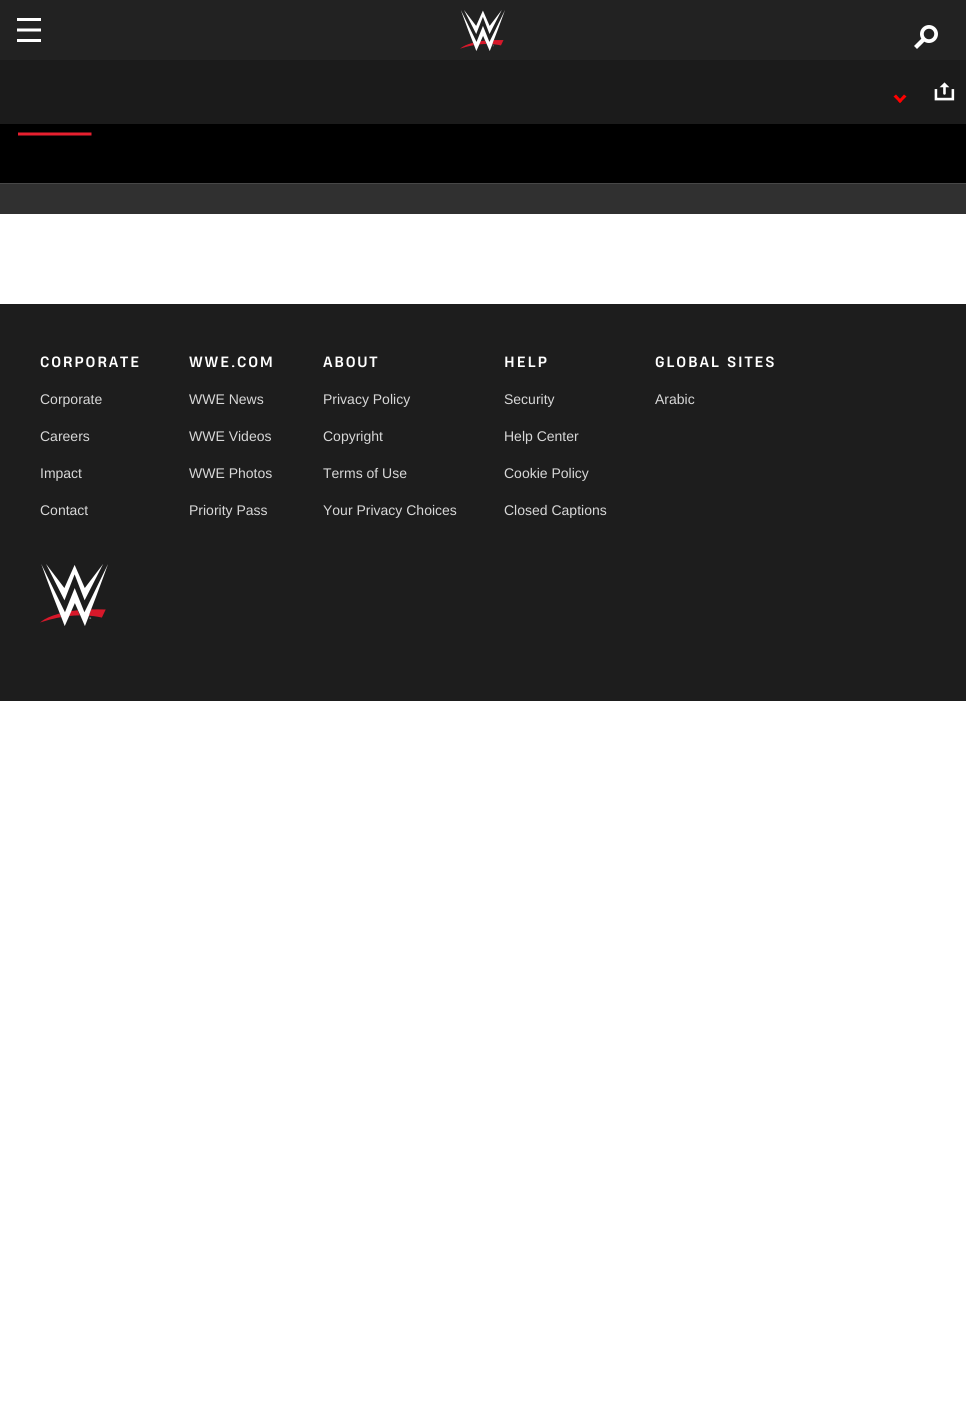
import math
import cairocffi as cairo

surface = cairo.ImageSurface(cairo.FORMAT_RGB24, 966, 1423)
cr = cairo.Context(surface)
options = cairo.FontOptions()
options.set_hint_metrics(cairo.HINT_METRICS_OFF)
options.set_hint_style(cairo.HINT_STYLE_NONE)
cr.set_font_options(options)
cr.set_miter_limit(4)


def use_color(code):
    cr.set_source_rgb(*(v / 255 for v in bytes.fromhex(code[-6:])))


def spaced_text(x, y, s, letter, word):
    cr.move_to(x, y)
    for ch in s:
        cr.show_text(ch)
        cr.rel_move_to(letter + word * (ch == ' '), 0)


def picture(path, x, y, w, h):
    cr.save()
    cr.set_source_surface(cairo.ImageSurface.create_from_png(path), x, y)
    cr.rectangle(x, y, w, h)
    cr.fill()
    cr.restore()


use_color("#ffffff")
cr.paint()
use_color("#222222")
cr.rectangle(0, 0, 966, 60)
cr.fill()
picture("img1.png", 17, 18, 24, 24)
picture("img2.png", 460, 10, 45, 41)
picture("img3.png", 914, 25, 24, 24)
use_color("#303030")
cr.rectangle(0, 184, 966, 30)
cr.fill()
use_color("#1b1b1b")
cr.rectangle(0, 60, 966, 64)
cr.fill()
use_color("#ff0000")
cr.new_path()
cr.move_to(904, 94.5)
cr.line_to(906.5, 96.5)
cr.line_to(900, 103)
cr.line_to(898, 101)
cr.close_path()
cr.fill()
cr.new_path()
cr.move_to(896, 94.5)
cr.line_to(902, 101)
cr.line_to(900, 103)
cr.line_to(893.5, 96.5)
cr.close_path()
cr.fill()
picture("img4.png", 934, 82, 21, 19)
use_color("#000000")
cr.rectangle(0, 124, 966, 59)
cr.fill()
use_color("#474747")
cr.rectangle(0, 183, 966, 1)
cr.fill()
cr.save()
cr.rectangle(18, 131, 90, 5)
cr.clip()
cr.new_path()
cr.move_to(1.5, 134)
cr.line_to(91.5, 134)
use_color("#e7202f")
cr.set_line_width(3)
cr.stroke()
cr.restore()
use_color("#1d1d1d")
cr.rectangle(0, 304, 966, 397)
cr.fill()
cr.select_font_face("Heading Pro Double", cairo.FONT_SLANT_NORMAL, cairo.FONT_WEIGHT_BOLD)
cr.set_font_size(14)
use_color("#ffffff")
spaced_text(40, 367, "CORPORATE", 1.75, 0)
cr.select_font_face("Liberation Sans")
use_color("#d8d8d8")
cr.move_to(40, 404)
cr.show_text("Corporate")
cr.move_to(40, 441)
cr.show_text("Careers")
cr.move_to(40, 478)
cr.show_text("Impact")
cr.move_to(40, 515)
cr.show_text("Contact")
cr.select_font_face("Heading Pro Double", cairo.FONT_SLANT_NORMAL, cairo.FONT_WEIGHT_BOLD)
use_color("#ffffff")
spaced_text(189, 367, "WWE.COM", 1.75, 0)
cr.select_font_face("Liberation Sans")
use_color("#d8d8d8")
cr.move_to(189, 404)
cr.show_text("WWE News")
cr.move_to(189, 441)
cr.show_text("WWE Videos")
cr.move_to(189, 478)
cr.show_text("WWE Photos")
cr.move_to(189, 515)
cr.show_text("Priority Pass")
cr.select_font_face("Heading Pro Double", cairo.FONT_SLANT_NORMAL, cairo.FONT_WEIGHT_BOLD)
use_color("#ffffff")
spaced_text(323, 367, "ABOUT", 1.75, 0)
cr.select_font_face("Liberation Sans")
use_color("#d8d8d8")
cr.move_to(323, 404)
cr.show_text("Privacy Policy")
cr.move_to(323, 441)
cr.show_text("Copyright")
cr.move_to(323, 478)
cr.show_text("Terms of Use")
cr.move_to(323, 515)
cr.show_text("Your Privacy Choices")
cr.select_font_face("Heading Pro Double", cairo.FONT_SLANT_NORMAL, cairo.FONT_WEIGHT_BOLD)
use_color("#ffffff")
spaced_text(504, 367, "HELP", 1.75, 0)
cr.select_font_face("Liberation Sans")
use_color("#d8d8d8")
cr.move_to(504, 404)
cr.show_text("Security")
cr.move_to(504, 441)
cr.show_text("Help Center")
cr.move_to(504, 478)
cr.show_text("Cookie Policy")
cr.move_to(504, 515)
cr.show_text("Closed Captions")
cr.select_font_face("Heading Pro Double", cairo.FONT_SLANT_NORMAL, cairo.FONT_WEIGHT_BOLD)
use_color("#ffffff")
spaced_text(655, 367, "GLOBAL SITES", 1.75, 0)
cr.select_font_face("Liberation Sans")
use_color("#d8d8d8")
cr.move_to(655, 404)
cr.show_text("Arabic")
picture("img5.png", 40, 564, 68, 62)
surface.write_to_png("result.png")
